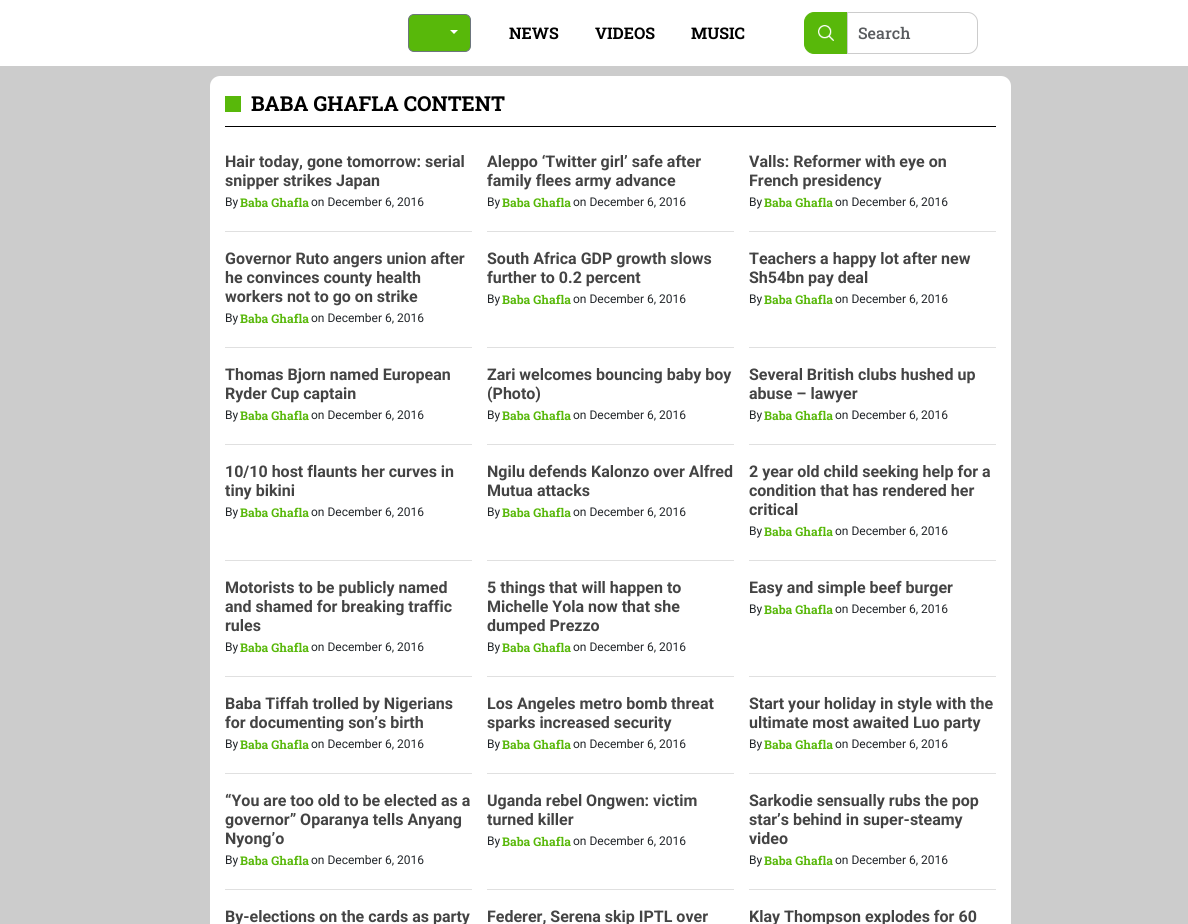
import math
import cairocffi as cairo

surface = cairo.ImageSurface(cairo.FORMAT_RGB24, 1188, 924)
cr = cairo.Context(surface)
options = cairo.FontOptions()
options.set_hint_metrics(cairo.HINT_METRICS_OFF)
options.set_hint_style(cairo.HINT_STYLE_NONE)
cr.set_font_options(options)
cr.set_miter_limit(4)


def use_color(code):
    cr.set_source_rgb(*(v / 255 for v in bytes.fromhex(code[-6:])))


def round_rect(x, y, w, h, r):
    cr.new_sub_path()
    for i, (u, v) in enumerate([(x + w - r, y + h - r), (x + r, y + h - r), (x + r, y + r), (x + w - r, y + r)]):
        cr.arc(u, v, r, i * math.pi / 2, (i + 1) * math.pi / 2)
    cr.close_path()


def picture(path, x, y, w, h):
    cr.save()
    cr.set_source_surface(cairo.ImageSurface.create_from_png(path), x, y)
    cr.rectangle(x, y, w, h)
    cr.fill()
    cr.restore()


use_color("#cccccc")
cr.paint()
use_color("#ffffff")
cr.rectangle(0, 0, 1188, 66)
cr.fill()
use_color("#58b80a")
round_rect(408.5, 14.5, 62, 37, 5.5)
cr.fill_preserve()
use_color("#6c757d")
cr.set_line_width(1)
cr.stroke()
use_color("#ffffff")
cr.new_path()
cr.move_to(450, 30)
cr.line_to(458, 30)
cr.line_to(454, 34)
cr.close_path()
cr.fill()
cr.select_font_face("Roboto Slab", cairo.FONT_SLANT_NORMAL, cairo.FONT_WEIGHT_BOLD)
cr.set_font_size(16)
use_color("#000000")
cr.move_to(509, 39)
cr.show_text("NEWS")
cr.move_to(595, 39)
cr.show_text("VIDEOS")
cr.move_to(691, 39)
cr.show_text("MUSIC")
use_color("#58b80a")
cr.new_path()
cr.move_to(814, 12.5)
cr.line_to(847.5, 12.5)
cr.line_to(847.5, 53.5)
cr.line_to(814, 53.5)
cr.curve_to(809, 53.5, 804.5, 49, 804.5, 44)
cr.line_to(804.5, 22)
cr.curve_to(804.5, 17, 809, 12.5, 814, 12.5)
cr.close_path()
cr.fill_preserve()
cr.stroke()
picture("img1.png", 818, 25, 16, 16)
cr.new_path()
cr.move_to(847.5, 12.5)
cr.line_to(968, 12.5)
cr.curve_to(973, 12.5, 977.5, 17, 977.5, 22)
cr.line_to(977.5, 44)
cr.curve_to(977.5, 49, 973, 53.5, 968, 53.5)
cr.line_to(847.5, 53.5)
cr.close_path()
use_color("#cccccc")
cr.stroke()
cr.select_font_face("Roboto Slab Medium")
use_color("#595c5f")
cr.move_to(858, 39)
cr.show_text("Search")
use_color("#ffffff")
round_rect(210, 76, 801, 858, 10)
cr.fill()
use_color("#000000")
cr.rectangle(225, 126, 771, 1)
cr.fill()
use_color("#58b80a")
cr.rectangle(225, 96, 16, 16)
cr.fill()
cr.select_font_face("Roboto Slab", cairo.FONT_SLANT_NORMAL, cairo.FONT_WEIGHT_BOLD)
cr.set_font_size(20.6)
use_color("#000000")
cr.move_to(251, 111)
cr.show_text("BABA GHAFLA CONTENT")
use_color("#e0e0e0")
cr.rectangle(225, 231, 247, 1)
cr.fill()
cr.select_font_face("Roboto", cairo.FONT_SLANT_NORMAL, cairo.FONT_WEIGHT_BOLD)
cr.set_font_size(16)
use_color("#444444")
cr.move_to(225, 167)
cr.show_text("Hair today, gone tomorrow: serial")
cr.move_to(225, 186)
cr.show_text("snipper strikes Japan")
cr.select_font_face("Roboto")
cr.set_font_size(12)
use_color("#212529")
cr.move_to(225, 206)
cr.show_text("By")
cr.select_font_face("Roboto Slab", cairo.FONT_SLANT_NORMAL, cairo.FONT_WEIGHT_BOLD)
use_color("#58b80a")
cr.move_to(240, 207)
cr.show_text("Baba Ghafla")
cr.select_font_face("Roboto")
use_color("#212529")
cr.move_to(311, 206)
cr.show_text("on December 6, 2016")
use_color("#e0e0e0")
cr.rectangle(487, 231, 247, 1)
cr.fill()
cr.select_font_face("Roboto", cairo.FONT_SLANT_NORMAL, cairo.FONT_WEIGHT_BOLD)
cr.set_font_size(16)
use_color("#444444")
cr.move_to(487, 167)
cr.show_text("Aleppo ‘Twitter girl’ safe after")
cr.move_to(487, 186)
cr.show_text("family flees army advance")
cr.select_font_face("Roboto")
cr.set_font_size(12)
use_color("#212529")
cr.move_to(487, 206)
cr.show_text("By")
cr.select_font_face("Roboto Slab", cairo.FONT_SLANT_NORMAL, cairo.FONT_WEIGHT_BOLD)
use_color("#58b80a")
cr.move_to(502, 207)
cr.show_text("Baba Ghafla")
cr.select_font_face("Roboto")
use_color("#212529")
cr.move_to(573, 206)
cr.show_text("on December 6, 2016")
use_color("#e0e0e0")
cr.rectangle(749, 231, 247, 1)
cr.fill()
cr.select_font_face("Roboto", cairo.FONT_SLANT_NORMAL, cairo.FONT_WEIGHT_BOLD)
cr.set_font_size(16)
use_color("#444444")
cr.move_to(749, 167)
cr.show_text("Valls: Reformer with eye on")
cr.move_to(749, 186)
cr.show_text("French presidency")
cr.select_font_face("Roboto")
cr.set_font_size(12)
use_color("#212529")
cr.move_to(749, 206)
cr.show_text("By")
cr.select_font_face("Roboto Slab", cairo.FONT_SLANT_NORMAL, cairo.FONT_WEIGHT_BOLD)
use_color("#58b80a")
cr.move_to(764, 207)
cr.show_text("Baba Ghafla")
cr.select_font_face("Roboto")
use_color("#212529")
cr.move_to(835, 206)
cr.show_text("on December 6, 2016")
use_color("#e0e0e0")
cr.rectangle(225, 347, 247, 1)
cr.fill()
cr.select_font_face("Roboto", cairo.FONT_SLANT_NORMAL, cairo.FONT_WEIGHT_BOLD)
cr.set_font_size(16)
use_color("#444444")
cr.move_to(225, 264)
cr.show_text("Governor Ruto angers union after")
cr.move_to(225, 283)
cr.show_text("he convinces county health")
cr.move_to(225, 302)
cr.show_text("workers not to go on strike")
cr.select_font_face("Roboto")
cr.set_font_size(12)
use_color("#212529")
cr.move_to(225, 322)
cr.show_text("By")
cr.select_font_face("Roboto Slab", cairo.FONT_SLANT_NORMAL, cairo.FONT_WEIGHT_BOLD)
use_color("#58b80a")
cr.move_to(240, 323)
cr.show_text("Baba Ghafla")
cr.select_font_face("Roboto")
use_color("#212529")
cr.move_to(311, 322)
cr.show_text("on December 6, 2016")
use_color("#e0e0e0")
cr.rectangle(487, 347, 247, 1)
cr.fill()
cr.select_font_face("Roboto", cairo.FONT_SLANT_NORMAL, cairo.FONT_WEIGHT_BOLD)
cr.set_font_size(16)
use_color("#444444")
cr.move_to(487, 264)
cr.show_text("South Africa GDP growth slows")
cr.move_to(487, 283)
cr.show_text("further to 0.2 percent")
cr.select_font_face("Roboto")
cr.set_font_size(12)
use_color("#212529")
cr.move_to(487, 303)
cr.show_text("By")
cr.select_font_face("Roboto Slab", cairo.FONT_SLANT_NORMAL, cairo.FONT_WEIGHT_BOLD)
use_color("#58b80a")
cr.move_to(502, 304)
cr.show_text("Baba Ghafla")
cr.select_font_face("Roboto")
use_color("#212529")
cr.move_to(573, 303)
cr.show_text("on December 6, 2016")
use_color("#e0e0e0")
cr.rectangle(749, 347, 247, 1)
cr.fill()
cr.select_font_face("Roboto", cairo.FONT_SLANT_NORMAL, cairo.FONT_WEIGHT_BOLD)
cr.set_font_size(16)
use_color("#444444")
cr.move_to(749, 264)
cr.show_text("Teachers a happy lot after new")
cr.move_to(749, 283)
cr.show_text("Sh54bn pay deal")
cr.select_font_face("Roboto")
cr.set_font_size(12)
use_color("#212529")
cr.move_to(749, 303)
cr.show_text("By")
cr.select_font_face("Roboto Slab", cairo.FONT_SLANT_NORMAL, cairo.FONT_WEIGHT_BOLD)
use_color("#58b80a")
cr.move_to(764, 304)
cr.show_text("Baba Ghafla")
cr.select_font_face("Roboto")
use_color("#212529")
cr.move_to(835, 303)
cr.show_text("on December 6, 2016")
use_color("#e0e0e0")
cr.rectangle(225, 444, 247, 1)
cr.fill()
cr.select_font_face("Roboto", cairo.FONT_SLANT_NORMAL, cairo.FONT_WEIGHT_BOLD)
cr.set_font_size(16)
use_color("#444444")
cr.move_to(225, 380)
cr.show_text("Thomas Bjorn named European")
cr.move_to(225, 399)
cr.show_text("Ryder Cup captain")
cr.select_font_face("Roboto")
cr.set_font_size(12)
use_color("#212529")
cr.move_to(225, 419)
cr.show_text("By")
cr.select_font_face("Roboto Slab", cairo.FONT_SLANT_NORMAL, cairo.FONT_WEIGHT_BOLD)
use_color("#58b80a")
cr.move_to(240, 420)
cr.show_text("Baba Ghafla")
cr.select_font_face("Roboto")
use_color("#212529")
cr.move_to(311, 419)
cr.show_text("on December 6, 2016")
use_color("#e0e0e0")
cr.rectangle(487, 444, 247, 1)
cr.fill()
cr.select_font_face("Roboto", cairo.FONT_SLANT_NORMAL, cairo.FONT_WEIGHT_BOLD)
cr.set_font_size(16)
use_color("#444444")
cr.move_to(487, 380)
cr.show_text("Zari welcomes bouncing baby boy")
cr.move_to(487, 399)
cr.show_text("(Photo)")
cr.select_font_face("Roboto")
cr.set_font_size(12)
use_color("#212529")
cr.move_to(487, 419)
cr.show_text("By")
cr.select_font_face("Roboto Slab", cairo.FONT_SLANT_NORMAL, cairo.FONT_WEIGHT_BOLD)
use_color("#58b80a")
cr.move_to(502, 420)
cr.show_text("Baba Ghafla")
cr.select_font_face("Roboto")
use_color("#212529")
cr.move_to(573, 419)
cr.show_text("on December 6, 2016")
use_color("#e0e0e0")
cr.rectangle(749, 444, 247, 1)
cr.fill()
cr.select_font_face("Roboto", cairo.FONT_SLANT_NORMAL, cairo.FONT_WEIGHT_BOLD)
cr.set_font_size(16)
use_color("#444444")
cr.move_to(749, 380)
cr.show_text("Several British clubs hushed up")
cr.move_to(749, 399)
cr.show_text("abuse – lawyer")
cr.select_font_face("Roboto")
cr.set_font_size(12)
use_color("#212529")
cr.move_to(749, 419)
cr.show_text("By")
cr.select_font_face("Roboto Slab", cairo.FONT_SLANT_NORMAL, cairo.FONT_WEIGHT_BOLD)
use_color("#58b80a")
cr.move_to(764, 420)
cr.show_text("Baba Ghafla")
cr.select_font_face("Roboto")
use_color("#212529")
cr.move_to(835, 419)
cr.show_text("on December 6, 2016")
use_color("#e0e0e0")
cr.rectangle(225, 560, 247, 1)
cr.fill()
cr.select_font_face("Roboto", cairo.FONT_SLANT_NORMAL, cairo.FONT_WEIGHT_BOLD)
cr.set_font_size(16)
use_color("#444444")
cr.move_to(225, 477)
cr.show_text("10/10 host flaunts her curves in")
cr.move_to(225, 496)
cr.show_text("tiny bikini")
cr.select_font_face("Roboto")
cr.set_font_size(12)
use_color("#212529")
cr.move_to(225, 516)
cr.show_text("By")
cr.select_font_face("Roboto Slab", cairo.FONT_SLANT_NORMAL, cairo.FONT_WEIGHT_BOLD)
use_color("#58b80a")
cr.move_to(240, 517)
cr.show_text("Baba Ghafla")
cr.select_font_face("Roboto")
use_color("#212529")
cr.move_to(311, 516)
cr.show_text("on December 6, 2016")
use_color("#e0e0e0")
cr.rectangle(487, 560, 247, 1)
cr.fill()
cr.select_font_face("Roboto", cairo.FONT_SLANT_NORMAL, cairo.FONT_WEIGHT_BOLD)
cr.set_font_size(16)
use_color("#444444")
cr.move_to(487, 477)
cr.show_text("Ngilu defends Kalonzo over Alfred")
cr.move_to(487, 496)
cr.show_text("Mutua attacks")
cr.select_font_face("Roboto")
cr.set_font_size(12)
use_color("#212529")
cr.move_to(487, 516)
cr.show_text("By")
cr.select_font_face("Roboto Slab", cairo.FONT_SLANT_NORMAL, cairo.FONT_WEIGHT_BOLD)
use_color("#58b80a")
cr.move_to(502, 517)
cr.show_text("Baba Ghafla")
cr.select_font_face("Roboto")
use_color("#212529")
cr.move_to(573, 516)
cr.show_text("on December 6, 2016")
use_color("#e0e0e0")
cr.rectangle(749, 560, 247, 1)
cr.fill()
cr.select_font_face("Roboto", cairo.FONT_SLANT_NORMAL, cairo.FONT_WEIGHT_BOLD)
cr.set_font_size(16)
use_color("#444444")
cr.move_to(749, 477)
cr.show_text("2 year old child seeking help for a")
cr.move_to(749, 496)
cr.show_text("condition that has rendered her")
cr.move_to(749, 515)
cr.show_text("critical")
cr.select_font_face("Roboto")
cr.set_font_size(12)
use_color("#212529")
cr.move_to(749, 535)
cr.show_text("By")
cr.select_font_face("Roboto Slab", cairo.FONT_SLANT_NORMAL, cairo.FONT_WEIGHT_BOLD)
use_color("#58b80a")
cr.move_to(764, 536)
cr.show_text("Baba Ghafla")
cr.select_font_face("Roboto")
use_color("#212529")
cr.move_to(835, 535)
cr.show_text("on December 6, 2016")
use_color("#e0e0e0")
cr.rectangle(225, 676, 247, 1)
cr.fill()
cr.select_font_face("Roboto", cairo.FONT_SLANT_NORMAL, cairo.FONT_WEIGHT_BOLD)
cr.set_font_size(16)
use_color("#444444")
cr.move_to(225, 593)
cr.show_text("Motorists to be publicly named")
cr.move_to(225, 612)
cr.show_text("and shamed for breaking traffic")
cr.move_to(225, 631)
cr.show_text("rules")
cr.select_font_face("Roboto")
cr.set_font_size(12)
use_color("#212529")
cr.move_to(225, 651)
cr.show_text("By")
cr.select_font_face("Roboto Slab", cairo.FONT_SLANT_NORMAL, cairo.FONT_WEIGHT_BOLD)
use_color("#58b80a")
cr.move_to(240, 652)
cr.show_text("Baba Ghafla")
cr.select_font_face("Roboto")
use_color("#212529")
cr.move_to(311, 651)
cr.show_text("on December 6, 2016")
use_color("#e0e0e0")
cr.rectangle(487, 676, 247, 1)
cr.fill()
cr.select_font_face("Roboto", cairo.FONT_SLANT_NORMAL, cairo.FONT_WEIGHT_BOLD)
cr.set_font_size(16)
use_color("#444444")
cr.move_to(487, 593)
cr.show_text("5 things that will happen to")
cr.move_to(487, 612)
cr.show_text("Michelle Yola now that she")
cr.move_to(487, 631)
cr.show_text("dumped Prezzo")
cr.select_font_face("Roboto")
cr.set_font_size(12)
use_color("#212529")
cr.move_to(487, 651)
cr.show_text("By")
cr.select_font_face("Roboto Slab", cairo.FONT_SLANT_NORMAL, cairo.FONT_WEIGHT_BOLD)
use_color("#58b80a")
cr.move_to(502, 652)
cr.show_text("Baba Ghafla")
cr.select_font_face("Roboto")
use_color("#212529")
cr.move_to(573, 651)
cr.show_text("on December 6, 2016")
use_color("#e0e0e0")
cr.rectangle(749, 676, 247, 1)
cr.fill()
cr.select_font_face("Roboto", cairo.FONT_SLANT_NORMAL, cairo.FONT_WEIGHT_BOLD)
cr.set_font_size(16)
use_color("#444444")
cr.move_to(749, 593)
cr.show_text("Easy and simple beef burger")
cr.select_font_face("Roboto")
cr.set_font_size(12)
use_color("#212529")
cr.move_to(749, 613)
cr.show_text("By")
cr.select_font_face("Roboto Slab", cairo.FONT_SLANT_NORMAL, cairo.FONT_WEIGHT_BOLD)
use_color("#58b80a")
cr.move_to(764, 614)
cr.show_text("Baba Ghafla")
cr.select_font_face("Roboto")
use_color("#212529")
cr.move_to(835, 613)
cr.show_text("on December 6, 2016")
use_color("#e0e0e0")
cr.rectangle(225, 773, 247, 1)
cr.fill()
cr.select_font_face("Roboto", cairo.FONT_SLANT_NORMAL, cairo.FONT_WEIGHT_BOLD)
cr.set_font_size(16)
use_color("#444444")
cr.move_to(225, 709)
cr.show_text("Baba Tiffah trolled by Nigerians")
cr.move_to(225, 728)
cr.show_text("for documenting son’s birth")
cr.select_font_face("Roboto")
cr.set_font_size(12)
use_color("#212529")
cr.move_to(225, 748)
cr.show_text("By")
cr.select_font_face("Roboto Slab", cairo.FONT_SLANT_NORMAL, cairo.FONT_WEIGHT_BOLD)
use_color("#58b80a")
cr.move_to(240, 749)
cr.show_text("Baba Ghafla")
cr.select_font_face("Roboto")
use_color("#212529")
cr.move_to(311, 748)
cr.show_text("on December 6, 2016")
use_color("#e0e0e0")
cr.rectangle(487, 773, 247, 1)
cr.fill()
cr.select_font_face("Roboto", cairo.FONT_SLANT_NORMAL, cairo.FONT_WEIGHT_BOLD)
cr.set_font_size(16)
use_color("#444444")
cr.move_to(487, 709)
cr.show_text("Los Angeles metro bomb threat")
cr.move_to(487, 728)
cr.show_text("sparks increased security")
cr.select_font_face("Roboto")
cr.set_font_size(12)
use_color("#212529")
cr.move_to(487, 748)
cr.show_text("By")
cr.select_font_face("Roboto Slab", cairo.FONT_SLANT_NORMAL, cairo.FONT_WEIGHT_BOLD)
use_color("#58b80a")
cr.move_to(502, 749)
cr.show_text("Baba Ghafla")
cr.select_font_face("Roboto")
use_color("#212529")
cr.move_to(573, 748)
cr.show_text("on December 6, 2016")
use_color("#e0e0e0")
cr.rectangle(749, 773, 247, 1)
cr.fill()
cr.select_font_face("Roboto", cairo.FONT_SLANT_NORMAL, cairo.FONT_WEIGHT_BOLD)
cr.set_font_size(16)
use_color("#444444")
cr.move_to(749, 709)
cr.show_text("Start your holiday in style with the")
cr.move_to(749, 728)
cr.show_text("ultimate most awaited Luo party")
cr.select_font_face("Roboto")
cr.set_font_size(12)
use_color("#212529")
cr.move_to(749, 748)
cr.show_text("By")
cr.select_font_face("Roboto Slab", cairo.FONT_SLANT_NORMAL, cairo.FONT_WEIGHT_BOLD)
use_color("#58b80a")
cr.move_to(764, 749)
cr.show_text("Baba Ghafla")
cr.select_font_face("Roboto")
use_color("#212529")
cr.move_to(835, 748)
cr.show_text("on December 6, 2016")
use_color("#e0e0e0")
cr.rectangle(225, 889, 247, 1)
cr.fill()
cr.select_font_face("Roboto", cairo.FONT_SLANT_NORMAL, cairo.FONT_WEIGHT_BOLD)
cr.set_font_size(16)
use_color("#444444")
cr.move_to(225, 806)
cr.show_text("“You are too old to be elected as a")
cr.move_to(225, 825)
cr.show_text("governor” Oparanya tells Anyang")
cr.move_to(225, 844)
cr.show_text("Nyong’o")
cr.select_font_face("Roboto")
cr.set_font_size(12)
use_color("#212529")
cr.move_to(225, 864)
cr.show_text("By")
cr.select_font_face("Roboto Slab", cairo.FONT_SLANT_NORMAL, cairo.FONT_WEIGHT_BOLD)
use_color("#58b80a")
cr.move_to(240, 865)
cr.show_text("Baba Ghafla")
cr.select_font_face("Roboto")
use_color("#212529")
cr.move_to(311, 864)
cr.show_text("on December 6, 2016")
use_color("#e0e0e0")
cr.rectangle(487, 889, 247, 1)
cr.fill()
cr.select_font_face("Roboto", cairo.FONT_SLANT_NORMAL, cairo.FONT_WEIGHT_BOLD)
cr.set_font_size(16)
use_color("#444444")
cr.move_to(487, 806)
cr.show_text("Uganda rebel Ongwen: victim")
cr.move_to(487, 825)
cr.show_text("turned killer")
cr.select_font_face("Roboto")
cr.set_font_size(12)
use_color("#212529")
cr.move_to(487, 845)
cr.show_text("By")
cr.select_font_face("Roboto Slab", cairo.FONT_SLANT_NORMAL, cairo.FONT_WEIGHT_BOLD)
use_color("#58b80a")
cr.move_to(502, 846)
cr.show_text("Baba Ghafla")
cr.select_font_face("Roboto")
use_color("#212529")
cr.move_to(573, 845)
cr.show_text("on December 6, 2016")
use_color("#e0e0e0")
cr.rectangle(749, 889, 247, 1)
cr.fill()
cr.select_font_face("Roboto", cairo.FONT_SLANT_NORMAL, cairo.FONT_WEIGHT_BOLD)
cr.set_font_size(16)
use_color("#444444")
cr.move_to(749, 806)
cr.show_text("Sarkodie sensually rubs the pop")
cr.move_to(749, 825)
cr.show_text("star’s behind in super-steamy")
cr.move_to(749, 844)
cr.show_text("video")
cr.select_font_face("Roboto")
cr.set_font_size(12)
use_color("#212529")
cr.move_to(749, 864)
cr.show_text("By")
cr.select_font_face("Roboto Slab", cairo.FONT_SLANT_NORMAL, cairo.FONT_WEIGHT_BOLD)
use_color("#58b80a")
cr.move_to(764, 865)
cr.show_text("Baba Ghafla")
cr.select_font_face("Roboto")
use_color("#212529")
cr.move_to(835, 864)
cr.show_text("on December 6, 2016")
cr.select_font_face("Roboto", cairo.FONT_SLANT_NORMAL, cairo.FONT_WEIGHT_BOLD)
cr.set_font_size(16)
use_color("#444444")
cr.move_to(225, 922)
cr.show_text("By-elections on the cards as party")
cr.move_to(487, 922)
cr.show_text("Federer, Serena skip IPTL over")
cr.move_to(749, 922)
cr.show_text("Klay Thompson explodes for 60")
surface.write_to_png("result.png")
